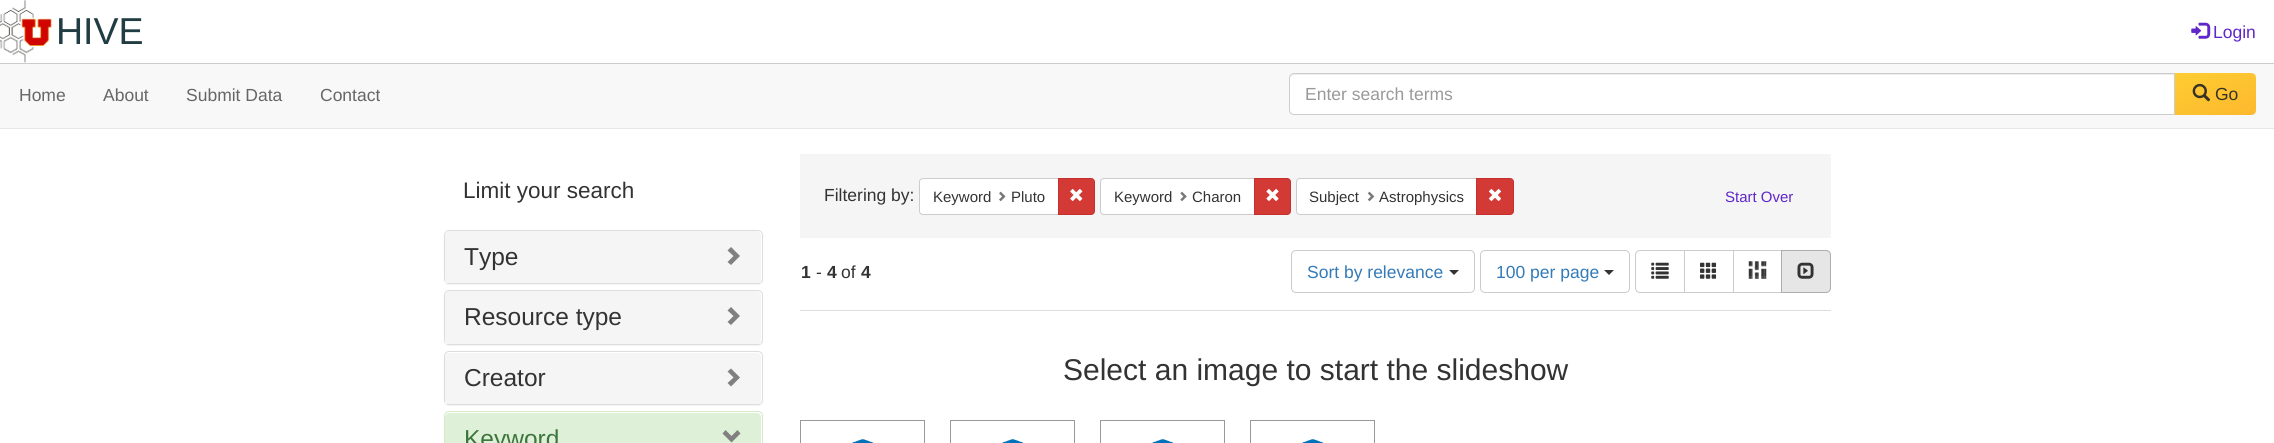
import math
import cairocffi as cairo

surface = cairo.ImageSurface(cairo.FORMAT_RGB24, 2274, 443)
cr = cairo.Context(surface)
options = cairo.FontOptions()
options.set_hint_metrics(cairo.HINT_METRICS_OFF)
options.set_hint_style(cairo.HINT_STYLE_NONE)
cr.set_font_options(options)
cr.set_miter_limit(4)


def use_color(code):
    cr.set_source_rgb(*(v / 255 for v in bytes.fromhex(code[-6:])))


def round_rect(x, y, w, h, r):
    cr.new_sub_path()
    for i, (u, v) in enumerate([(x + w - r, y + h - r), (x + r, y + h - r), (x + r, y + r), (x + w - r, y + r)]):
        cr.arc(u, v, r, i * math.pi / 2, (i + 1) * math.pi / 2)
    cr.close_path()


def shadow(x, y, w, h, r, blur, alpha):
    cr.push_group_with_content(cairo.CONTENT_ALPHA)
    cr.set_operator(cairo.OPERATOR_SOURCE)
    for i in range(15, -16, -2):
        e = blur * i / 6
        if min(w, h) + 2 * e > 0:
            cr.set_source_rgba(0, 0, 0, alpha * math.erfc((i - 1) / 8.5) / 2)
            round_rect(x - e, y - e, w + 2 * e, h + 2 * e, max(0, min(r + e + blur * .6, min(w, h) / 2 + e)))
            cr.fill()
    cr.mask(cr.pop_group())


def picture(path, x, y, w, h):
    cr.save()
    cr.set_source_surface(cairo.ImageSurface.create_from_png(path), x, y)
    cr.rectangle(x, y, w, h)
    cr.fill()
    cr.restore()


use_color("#ffffff")
cr.paint()
use_color("#cccccc")
cr.rectangle(0, 63, 2274, 1)
cr.fill()
picture("img1.png", 0, 0, 52, 63)
cr.select_font_face("Liberation Sans")
cr.set_font_size(37.5)
use_color("#213d43")
cr.move_to(56, 44)
cr.show_text("HIVE")
picture("img2.png", 2191, 22, 20, 17)
cr.set_font_size(17.5)
use_color("#5f26c9")
cr.move_to(2213, 38)
cr.show_text("Login")
use_color("#f8f8f8")
cr.rectangle(0, 64, 2274, 64)
cr.fill()
use_color("#e7e7e7")
cr.rectangle(0, 128, 2274, 1)
cr.fill()
use_color("#666666")
cr.move_to(19, 101)
cr.show_text("Home")
cr.move_to(103, 101)
cr.show_text("About")
cr.move_to(186, 101)
cr.show_text("Submit Data")
cr.move_to(320, 101)
cr.show_text("Contact")
use_color("#ffffff")
cr.new_path()
cr.move_to(1294, 73)
cr.line_to(2175, 73)
cr.line_to(2175, 115)
cr.line_to(1294, 115)
cr.curve_to(1291, 115, 1289, 113, 1289, 110)
cr.line_to(1289, 78)
cr.curve_to(1289, 75, 1291, 73, 1294, 73)
cr.close_path()
cr.fill()
use_color("#ececec")
cr.new_path()
cr.move_to(1294, 75)
cr.line_to(2174, 75)
cr.line_to(2174, 74)
cr.line_to(1294, 74)
cr.curve_to(1291, 74, 1290, 76, 1290, 79)
cr.curve_to(1290, 77, 1292, 75, 1294, 75)
cr.close_path()
cr.fill()
cr.new_path()
cr.move_to(1294, 73.5)
cr.line_to(2174.5, 73.5)
cr.line_to(2174.5, 114.5)
cr.line_to(1294, 114.5)
cr.curve_to(1291.5, 114.5, 1289.5, 112.5, 1289.5, 110)
cr.line_to(1289.5, 78)
cr.curve_to(1289.5, 75.5, 1291.5, 73.5, 1294, 73.5)
cr.close_path()
use_color("#cccccc")
cr.set_line_width(1)
cr.stroke()
use_color("#999999")
cr.move_to(1305, 100)
cr.show_text("Enter search terms")
gradient = cairo.LinearGradient(2203, 62, 2228, 126)
gradient.add_color_stop_rgba(0, 0.996, 0.804, 0.196, 1)
gradient.add_color_stop_rgba(1, 0.992, 0.722, 0.18, 1)
cr.set_source(gradient)
cr.new_path()
cr.move_to(2175, 73)
cr.line_to(2251, 73)
cr.curve_to(2254, 73, 2256, 75, 2256, 78)
cr.line_to(2256, 110)
cr.curve_to(2256, 113, 2254, 115, 2251, 115)
cr.line_to(2175, 115)
cr.close_path()
cr.fill()
picture("img3.png", 2192, 83, 19, 19)
use_color("#373223")
cr.move_to(2215, 100)
cr.show_text("Go")
cr.set_font_size(22.5)
use_color("#333333")
cr.move_to(463, 198)
cr.show_text("Limit your search")
use_color("#000000")
shadow(444, 231, 319, 54, 5, 0.5, 0.05)
use_color("#ffffff")
round_rect(444.5, 230.5, 318, 53, 4.5)
cr.fill_preserve()
use_color("#dddddd")
cr.stroke()
use_color("#f5f5f5")
cr.new_path()
cr.move_to(449, 231)
cr.line_to(757, 231)
cr.curve_to(759, 231, 761, 233, 761, 235)
cr.line_to(761, 283)
cr.line_to(445, 283)
cr.line_to(445, 235)
cr.curve_to(445, 233, 447, 231, 449, 231)
cr.close_path()
cr.fill()
cr.set_font_size(24.5)
use_color("#333333")
cr.move_to(464, 265)
cr.show_text("Type")
use_color("#808080")
cr.new_path()
cr.move_to(740, 256)
cr.line_to(731, 265)
cr.line_to(727.5, 262)
cr.line_to(733.5, 256)
cr.line_to(727.5, 250.5)
cr.line_to(731, 247)
cr.close_path()
cr.fill()
use_color("#000000")
shadow(444, 291, 319, 55, 5, 0.5, 0.05)
use_color("#ffffff")
round_rect(444.5, 290.5, 318, 54, 4.5)
cr.fill_preserve()
use_color("#dddddd")
cr.stroke()
use_color("#f5f5f5")
cr.new_path()
cr.move_to(449, 291)
cr.line_to(757, 291)
cr.curve_to(759, 291, 761, 293, 761, 295)
cr.line_to(761, 344)
cr.line_to(445, 344)
cr.line_to(445, 295)
cr.curve_to(445, 293, 447, 291, 449, 291)
cr.close_path()
cr.fill()
use_color("#333333")
cr.move_to(464, 325)
cr.show_text("Resource type")
use_color("#808080")
cr.new_path()
cr.move_to(740, 316)
cr.line_to(731, 325)
cr.line_to(727.5, 322)
cr.line_to(733.5, 316)
cr.line_to(727.5, 310.5)
cr.line_to(731, 307)
cr.close_path()
cr.fill()
use_color("#000000")
shadow(444, 353, 319, 53, 5, 0.5, 0.05)
use_color("#ffffff")
round_rect(444.5, 351.5, 318, 53, 4.5)
cr.fill_preserve()
use_color("#dddddd")
cr.stroke()
use_color("#f5f5f5")
cr.new_path()
cr.move_to(449, 353)
cr.line_to(757, 353)
cr.curve_to(759, 353, 761, 355, 761, 357)
cr.line_to(761, 404)
cr.line_to(445, 404)
cr.line_to(445, 357)
cr.curve_to(445, 355, 447, 353, 449, 353)
cr.close_path()
cr.fill()
use_color("#333333")
cr.move_to(464, 386)
cr.show_text("Creator")
use_color("#808080")
cr.new_path()
cr.move_to(740, 377.5)
cr.line_to(731, 386.5)
cr.line_to(727.5, 383)
cr.line_to(733.5, 377.5)
cr.line_to(727.5, 371.5)
cr.line_to(731, 368.5)
cr.close_path()
cr.fill()
round_rect(444.5, 411.5, 318, 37, 4.5)
use_color("#d6e9c6")
cr.stroke()
use_color("#dff0d8")
cr.new_path()
cr.move_to(449, 413)
cr.line_to(757, 413)
cr.curve_to(759, 413, 761, 415, 761, 417)
cr.line_to(761, 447)
cr.line_to(445, 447)
cr.line_to(445, 417)
cr.curve_to(445, 415, 447, 413, 449, 413)
cr.close_path()
cr.fill()
use_color("#3c763d")
cr.move_to(464, 447)
cr.show_text("Keyword")
use_color("#808080")
cr.new_path()
cr.move_to(740.5, 433.5)
cr.line_to(731.5, 442.5)
cr.line_to(722.5, 433.5)
cr.line_to(725.5, 430)
cr.line_to(731.5, 436)
cr.line_to(737.5, 430)
cr.close_path()
cr.fill()
use_color("#f5f5f5")
cr.rectangle(800, 154, 1031, 84)
cr.fill()
cr.set_font_size(17.5)
use_color("#333333")
cr.move_to(824, 201)
cr.show_text("Filtering by:")
use_color("#ffffff")
cr.new_path()
cr.move_to(923, 178.5)
cr.line_to(1058.5, 178.5)
cr.line_to(1058.5, 214.5)
cr.line_to(923, 214.5)
cr.curve_to(921, 214.5, 919.5, 213, 919.5, 211)
cr.line_to(919.5, 182)
cr.curve_to(919.5, 180, 921, 178.5, 923, 178.5)
cr.close_path()
cr.fill_preserve()
use_color("#cccccc")
cr.stroke()
cr.set_font_size(15)
use_color("#333333")
cr.move_to(933, 202)
cr.show_text("Keyword")
picture("img4.png", 999, 191, 7, 11)
cr.move_to(1011, 202)
cr.show_text("Pluto")
use_color("#d33a35")
cr.new_path()
cr.move_to(1058.5, 178.5)
cr.line_to(1091, 178.5)
cr.curve_to(1093, 178.5, 1094.5, 180, 1094.5, 182)
cr.line_to(1094.5, 211)
cr.curve_to(1094.5, 213, 1093, 214.5, 1091, 214.5)
cr.line_to(1058.5, 214.5)
cr.close_path()
cr.fill_preserve()
use_color("#c4302b")
cr.stroke()
picture("img5.png", 1070, 188, 13, 14)
use_color("#ffffff")
cr.new_path()
cr.move_to(1104, 178.5)
cr.line_to(1254.5, 178.5)
cr.line_to(1254.5, 214.5)
cr.line_to(1104, 214.5)
cr.curve_to(1102, 214.5, 1100.5, 213, 1100.5, 211)
cr.line_to(1100.5, 182)
cr.curve_to(1100.5, 180, 1102, 178.5, 1104, 178.5)
cr.close_path()
cr.fill_preserve()
use_color("#cccccc")
cr.stroke()
use_color("#333333")
cr.move_to(1114, 202)
cr.show_text("Keyword")
picture("img6.png", 1180, 191, 7, 11)
cr.move_to(1192, 202)
cr.show_text("Charon")
use_color("#d33a35")
cr.new_path()
cr.move_to(1254.5, 178.5)
cr.line_to(1287, 178.5)
cr.curve_to(1289, 178.5, 1290.5, 180, 1290.5, 182)
cr.line_to(1290.5, 211)
cr.curve_to(1290.5, 213, 1289, 214.5, 1287, 214.5)
cr.line_to(1254.5, 214.5)
cr.close_path()
cr.fill_preserve()
use_color("#c4302b")
cr.stroke()
picture("img7.png", 1266, 188, 13, 14)
use_color("#ffffff")
cr.new_path()
cr.move_to(1300, 178.5)
cr.line_to(1477.5, 178.5)
cr.line_to(1477.5, 214.5)
cr.line_to(1300, 214.5)
cr.curve_to(1298, 214.5, 1296.5, 213, 1296.5, 211)
cr.line_to(1296.5, 182)
cr.curve_to(1296.5, 180, 1298, 178.5, 1300, 178.5)
cr.close_path()
cr.fill_preserve()
use_color("#cccccc")
cr.stroke()
use_color("#333333")
cr.move_to(1309, 202)
cr.show_text("Subject")
picture("img8.png", 1367, 191, 8, 11)
cr.move_to(1379, 202)
cr.show_text("Astrophysics")
use_color("#d33a35")
cr.new_path()
cr.move_to(1476.5, 178.5)
cr.line_to(1510, 178.5)
cr.curve_to(1512, 178.5, 1513.5, 180, 1513.5, 182)
cr.line_to(1513.5, 211)
cr.curve_to(1513.5, 213, 1512, 214.5, 1510, 214.5)
cr.line_to(1476.5, 214.5)
cr.close_path()
cr.fill_preserve()
use_color("#c4302b")
cr.stroke()
picture("img9.png", 1488, 188, 14, 14)
use_color("#5f26c9")
cr.move_to(1725, 202)
cr.show_text("Start Over")
use_color("#dddddd")
cr.rectangle(800, 310, 1031, 1)
cr.fill()
cr.select_font_face("Liberation Sans", cairo.FONT_SLANT_NORMAL, cairo.FONT_WEIGHT_BOLD)
cr.set_font_size(17.5)
use_color("#333333")
cr.move_to(801, 278)
cr.show_text("1")
cr.select_font_face("Liberation Sans")
cr.move_to(816, 278)
cr.show_text("-")
cr.select_font_face("Liberation Sans", cairo.FONT_SLANT_NORMAL, cairo.FONT_WEIGHT_BOLD)
cr.move_to(827, 278)
cr.show_text("4")
cr.select_font_face("Liberation Sans")
cr.move_to(841, 278)
cr.show_text("of")
cr.select_font_face("Liberation Sans", cairo.FONT_SLANT_NORMAL, cairo.FONT_WEIGHT_BOLD)
cr.move_to(861, 278)
cr.show_text("4")
round_rect(1291.5, 250.5, 183, 42, 4.5)
use_color("#cccccc")
cr.stroke()
cr.select_font_face("Liberation Sans")
use_color("#337ab7")
cr.move_to(1307, 278)
cr.show_text("Sort by relevance")
use_color("#333333")
cr.new_path()
cr.move_to(1449, 270)
cr.line_to(1459, 270)
cr.line_to(1454, 275)
cr.close_path()
cr.fill()
round_rect(1480.5, 250.5, 149, 42, 4.5)
use_color("#cccccc")
cr.stroke()
use_color("#337ab7")
cr.move_to(1496, 278)
cr.show_text("100 per page")
use_color("#333333")
cr.new_path()
cr.move_to(1604, 270)
cr.line_to(1614, 270)
cr.line_to(1609, 275)
cr.close_path()
cr.fill()
cr.new_path()
cr.move_to(1640, 250.5)
cr.line_to(1684.5, 250.5)
cr.line_to(1684.5, 292.5)
cr.line_to(1640, 292.5)
cr.curve_to(1637.5, 292.5, 1635.5, 290.5, 1635.5, 288)
cr.line_to(1635.5, 255)
cr.curve_to(1635.5, 252.5, 1637.5, 250.5, 1640, 250.5)
cr.close_path()
use_color("#cccccc")
cr.stroke()
picture("img10.png", 1651, 262, 18, 17)
cr.rectangle(1684.5, 250.5, 49, 42)
cr.stroke()
picture("img11.png", 1700, 262, 17, 17)
cr.rectangle(1733.5, 250.5, 49, 42)
cr.stroke()
picture("img12.png", 1748, 261, 19, 18)
use_color("#e6e6e6")
cr.new_path()
cr.move_to(1781.5, 250.5)
cr.line_to(1826, 250.5)
cr.curve_to(1828.5, 250.5, 1830.5, 252.5, 1830.5, 255)
cr.line_to(1830.5, 288)
cr.curve_to(1830.5, 290.5, 1828.5, 292.5, 1826, 292.5)
cr.line_to(1781.5, 292.5)
cr.close_path()
cr.fill_preserve()
use_color("#adadad")
cr.stroke()
picture("img13.png", 1797, 262, 17, 17)
cr.set_font_size(30)
use_color("#333333")
cr.move_to(1063, 380)
cr.show_text("Select an image to start the slideshow")
cr.rectangle(800.5, 420.5, 124, 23)
use_color("#999999")
cr.stroke()
picture("img14.png", 851, 439, 23, 4)
cr.rectangle(950.5, 420.5, 124, 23)
cr.stroke()
picture("img14.png", 1001, 439, 23, 4)
cr.rectangle(1100.5, 420.5, 124, 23)
cr.stroke()
picture("img14.png", 1151, 439, 23, 4)
cr.rectangle(1250.5, 420.5, 124, 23)
cr.stroke()
picture("img14.png", 1301, 439, 23, 4)
surface.write_to_png("result.png")
